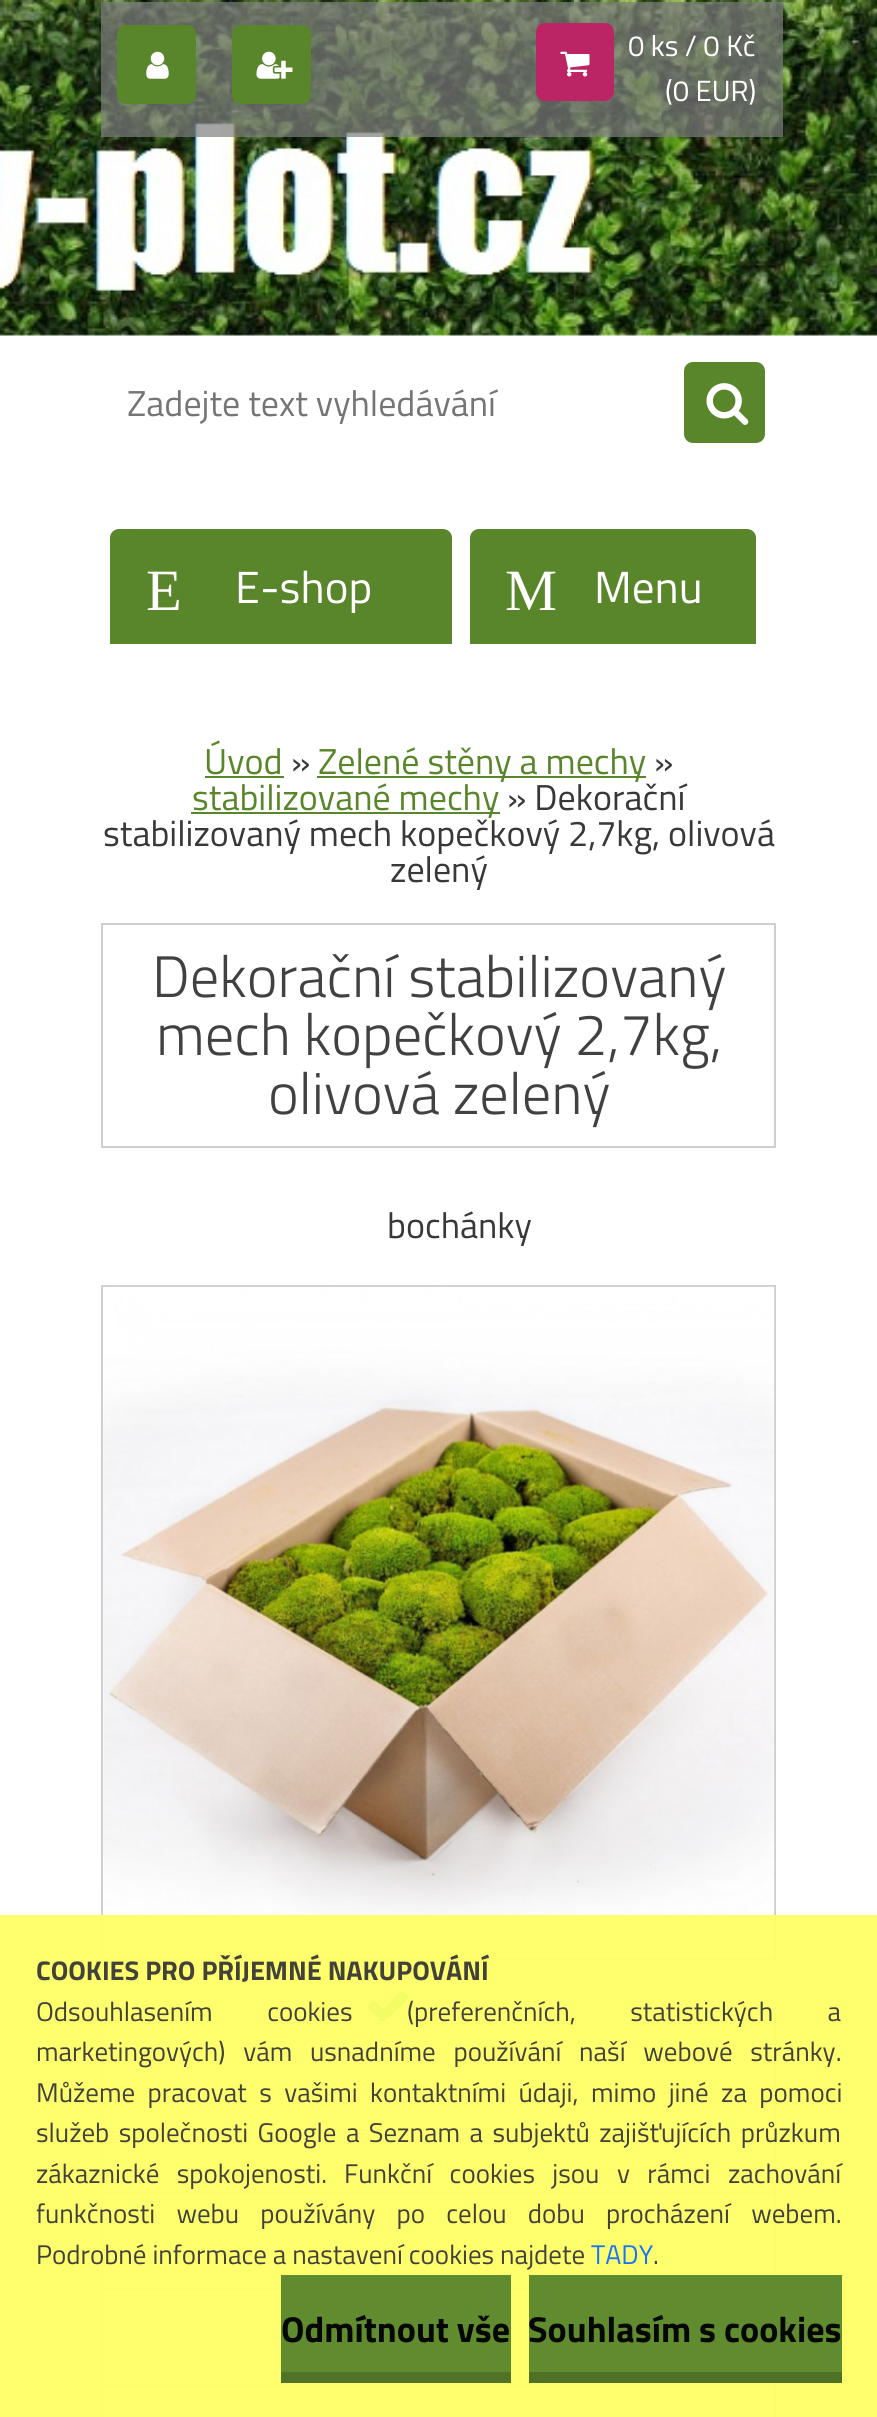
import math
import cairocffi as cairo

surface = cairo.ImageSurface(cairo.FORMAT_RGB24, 877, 2417)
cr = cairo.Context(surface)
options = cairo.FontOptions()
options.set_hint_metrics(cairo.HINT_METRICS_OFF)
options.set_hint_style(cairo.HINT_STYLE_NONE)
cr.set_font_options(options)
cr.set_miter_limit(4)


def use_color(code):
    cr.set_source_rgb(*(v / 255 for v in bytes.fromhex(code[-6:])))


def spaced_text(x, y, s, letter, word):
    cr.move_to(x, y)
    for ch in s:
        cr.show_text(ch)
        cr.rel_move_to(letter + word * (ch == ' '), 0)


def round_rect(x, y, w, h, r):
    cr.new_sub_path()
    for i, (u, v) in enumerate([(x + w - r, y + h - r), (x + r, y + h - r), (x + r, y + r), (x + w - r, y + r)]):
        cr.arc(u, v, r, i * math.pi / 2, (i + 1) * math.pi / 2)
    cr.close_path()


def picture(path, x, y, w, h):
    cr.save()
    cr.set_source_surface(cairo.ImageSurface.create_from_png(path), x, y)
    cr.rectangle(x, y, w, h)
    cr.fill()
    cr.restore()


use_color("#ffffff")
cr.paint()
picture("img6.png", 0, 0, 877, 336)
cr.set_source_rgba(0.502, 0.502, 0.502, 0.7)
cr.rectangle(101, 2, 682, 135)
cr.fill()
use_color("#59862b")
round_rect(117, 25, 79, 79, 9)
cr.fill()
picture("img1.png", 146, 51, 23, 28)
round_rect(232, 25, 79, 79, 9)
cr.fill()
picture("img2.png", 256, 51, 37, 28)
use_color("#bc2565")
round_rect(536, 23, 78, 78, 9)
cr.fill()
picture("img3.png", 560, 51, 30, 26)
cr.select_font_face("Titillium Web")
cr.set_font_size(29.25)
use_color("#ffffff")
cr.move_to(628, 56)
cr.show_text("0 ks / 0 Kč")
cr.move_to(665, 101)
cr.show_text("(0 EUR)")
use_color("#59862b")
cr.new_path()
cr.move_to(119, 529)
cr.line_to(443, 529)
cr.curve_to(448, 529, 452, 533, 452, 538)
cr.line_to(452, 644)
cr.line_to(110, 644)
cr.line_to(110, 538)
cr.curve_to(110, 533, 114, 529, 119, 529)
cr.close_path()
cr.fill()
cr.select_font_face("Liberation Serif")
cr.set_font_size(58.5)
use_color("#ffffff")
cr.move_to(146, 610)
cr.show_text("E")
cr.select_font_face("Titillium Web")
cr.set_font_size(45)
cr.move_to(235, 603)
cr.show_text("E-shop")
use_color("#59862b")
cr.new_path()
cr.move_to(479, 529)
cr.line_to(747, 529)
cr.curve_to(752, 529, 756, 533, 756, 538)
cr.line_to(756, 644)
cr.line_to(470, 644)
cr.line_to(470, 538)
cr.curve_to(470, 533, 474, 529, 479, 529)
cr.close_path()
cr.fill()
cr.select_font_face("Liberation Serif")
cr.set_font_size(58.5)
use_color("#ffffff")
cr.move_to(505, 610)
cr.show_text("M")
cr.select_font_face("Titillium Web")
cr.set_font_size(45)
cr.move_to(594, 603)
cr.show_text("Menu")
cr.set_font_size(36)
use_color("#59862b")
cr.move_to(204, 774)
cr.show_text("Úvod")
cr.rectangle(205, 776, 79, 2)
cr.fill()
use_color("#383838")
cr.move_to(291, 774)
cr.show_text("»")
use_color("#59862b")
cr.rectangle(317, 776, 329, 2)
cr.fill()
cr.move_to(318, 774)
cr.show_text("Zelené stěny a mechy")
use_color("#383838")
cr.move_to(654, 774)
cr.show_text("»")
use_color("#59862b")
cr.rectangle(191, 812, 309, 2)
cr.fill()
cr.move_to(192, 810)
cr.show_text("stabilizované mechy")
use_color("#383838")
cr.move_to(507, 810)
cr.show_text("» Dekorační")
cr.move_to(103, 846)
cr.show_text("stabilizovaný mech kopečkový 2,7kg, olivová")
cr.move_to(390, 882)
cr.show_text("zelený")
cr.rectangle(102, 924, 673, 223)
use_color("#cfcfcf")
cr.stroke()
cr.select_font_face("Titillium Web Light")
cr.set_font_size(58.5)
use_color("#414141")
cr.move_to(152, 997)
cr.show_text("Dekorační stabilizovaný")
cr.move_to(156, 1055)
cr.show_text("mech kopečkový 2,7kg,")
cr.move_to(268, 1114)
cr.show_text("olivová zelený")
cr.select_font_face("Titillium Web")
cr.set_font_size(36)
use_color("#383838")
cr.move_to(387, 1238)
cr.show_text("bochánky")
cr.rectangle(102, 1286, 673, 673)
use_color("#cfcfcf")
cr.stroke()
picture("img4.png", 103, 1286, 672, 671)
picture("img5.png", 367, 1991, 42, 30)
cr.rectangle(101, 2023, 675, 2)
cr.fill()
cr.rectangle(774, 2023, 2, 394)
cr.fill()
cr.rectangle(101, 2023, 2, 394)
cr.fill()
cr.rectangle(101, 2192, 675, 2)
cr.fill()
cr.rectangle(101, 2288, 675, 2)
cr.fill()
cr.rectangle(101, 2385, 675, 2)
cr.fill()
use_color("#757575")
cr.move_to(127, 416)
cr.show_text("Zadejte text vyhledávání")
use_color("#59862b")
round_rect(684, 362, 81, 81, 9)
cr.fill()
picture("img7.png", 706, 383, 43, 42)
cr.set_source_rgba(1, 1, 0.4, 0.95)
cr.rectangle(0, 1915, 877, 502)
cr.fill()
cr.select_font_face("Titillium Web", cairo.FONT_SLANT_NORMAL, cairo.FONT_WEIGHT_BOLD)
cr.set_font_size(27)
use_color("#42423b")
cr.move_to(36, 1980)
cr.show_text("COOKIES PRO PŘÍJEMNÉ NAKUPOVÁNÍ")
cr.select_font_face("Titillium Web")
spaced_text(36, 2021, "Odsouhlasením cookies (preferenčních, statistických a", 0, 48.5)
spaced_text(36, 2061, "marketingových) vám usnadníme používání naší webové stránky.", 0, 11.75)
spaced_text(36, 2102, "Můžeme pracovat s vašimi kontaktními údaji, mimo jiné za pomoci", 0, 6.5)
spaced_text(36, 2142, "služeb společnosti Google a Seznam a subjektů zajišťujících průzkum", 0, 3.5)
spaced_text(36, 2183, "zákaznické spokojenosti.", 0, 11.5)
spaced_text(344, 2183, "Funkční cookies jsou v rámci zachování", 0, 11.5)
spaced_text(36, 2223, "funkčnosti webu používány po celou dobu procházení webem.", 0, 15.25)
cr.move_to(36, 2264)
cr.show_text("Podrobné informace a nastavení cookies najdete")
use_color("#1975f6")
cr.move_to(591, 2264)
cr.show_text("TADY")
use_color("#414141")
cr.move_to(653, 2264)
cr.show_text(".")
cr.set_source_rgba(0.349, 0.525, 0.169, 0.95)
cr.rectangle(281, 2275, 230, 97)
cr.fill()
use_color("#507328")
cr.rectangle(281, 2372, 230, 11)
cr.fill()
cr.select_font_face("Titillium Web", cairo.FONT_SLANT_NORMAL, cairo.FONT_WEIGHT_BOLD)
cr.set_font_size(36)
use_color("#050702")
cr.move_to(281, 2342)
cr.show_text("Odmítnout vše")
cr.set_source_rgba(0.349, 0.525, 0.169, 0.95)
cr.rectangle(529, 2275, 313, 97)
cr.fill()
use_color("#4f7126")
cr.rectangle(529, 2372, 313, 11)
cr.fill()
use_color("#050702")
cr.move_to(528, 2342)
cr.show_text("Souhlasím s cookies")
surface.write_to_png("result.png")
